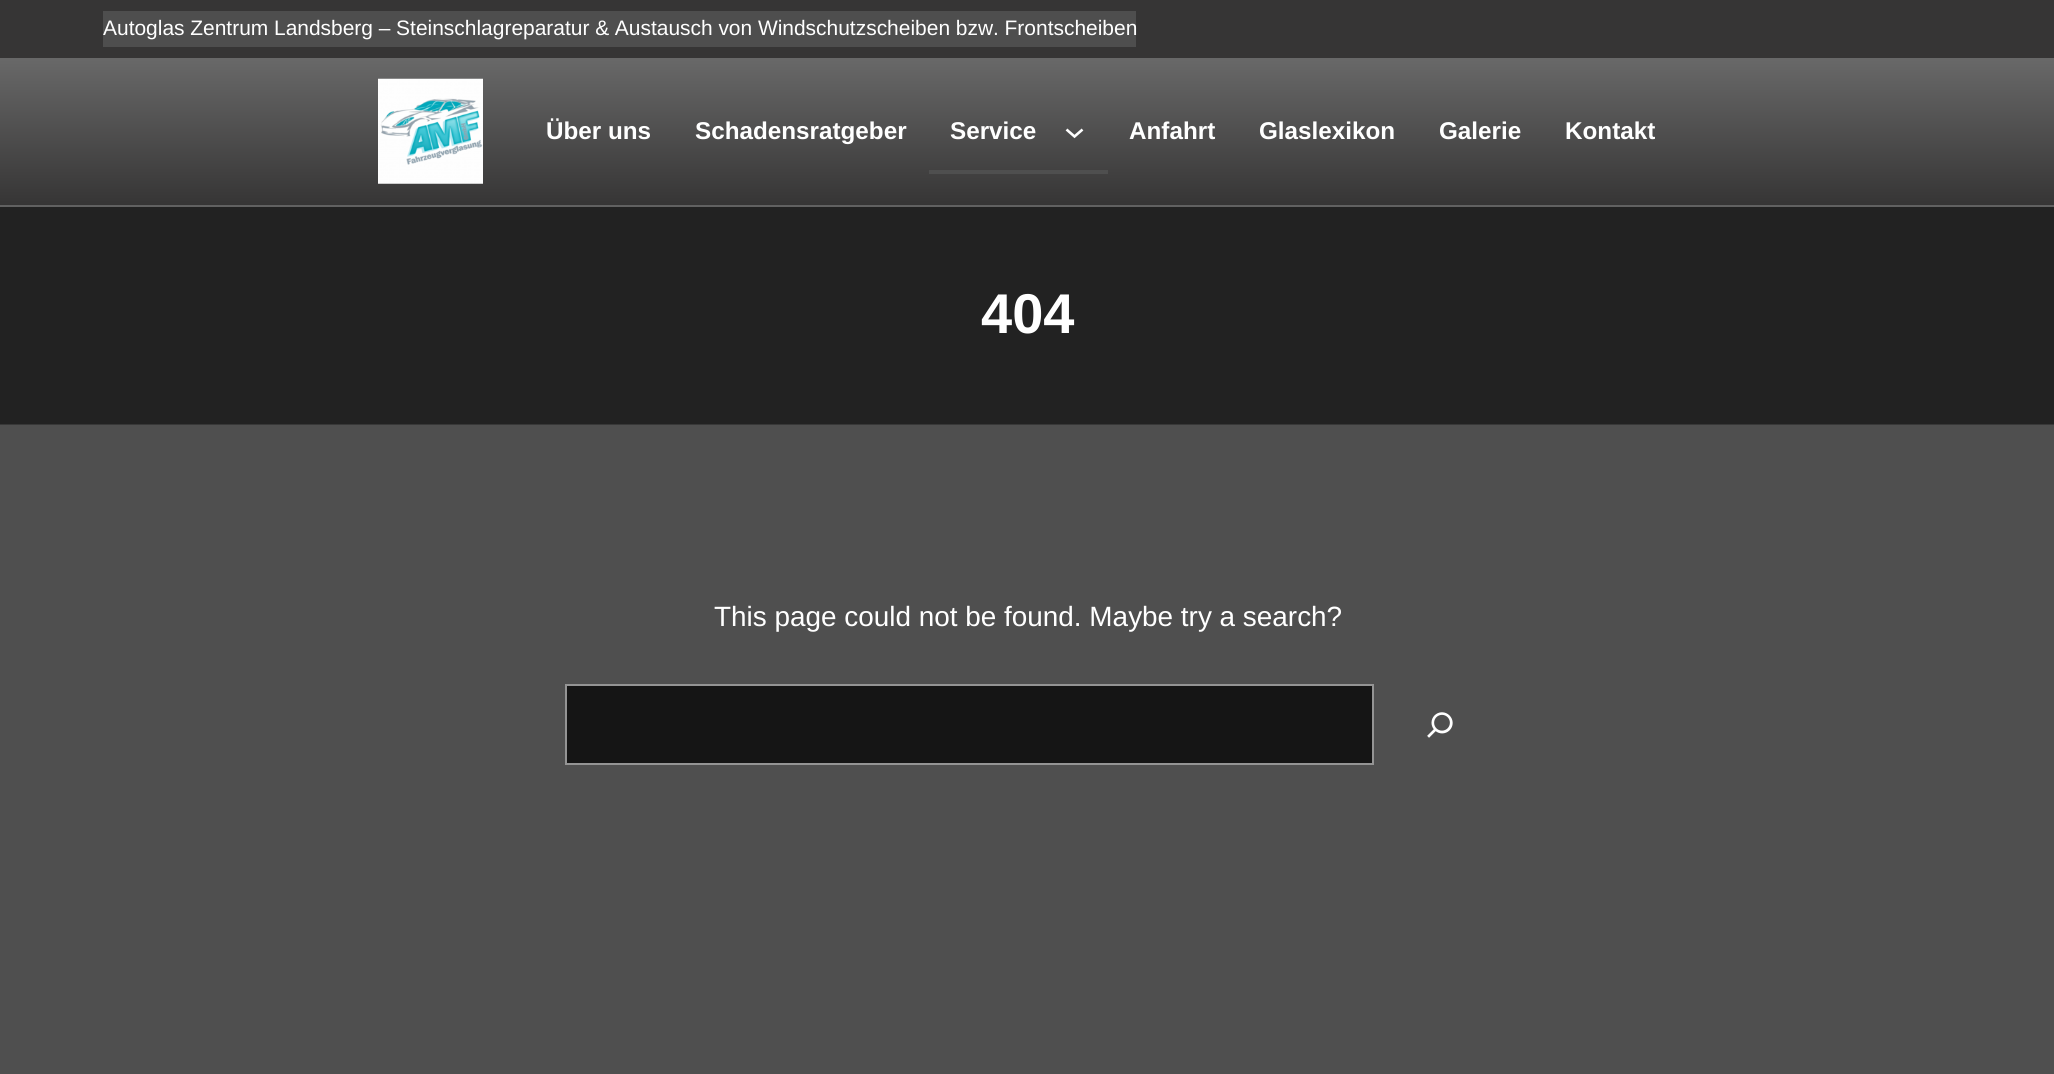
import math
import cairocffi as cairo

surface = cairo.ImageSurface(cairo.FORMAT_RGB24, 2054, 1074)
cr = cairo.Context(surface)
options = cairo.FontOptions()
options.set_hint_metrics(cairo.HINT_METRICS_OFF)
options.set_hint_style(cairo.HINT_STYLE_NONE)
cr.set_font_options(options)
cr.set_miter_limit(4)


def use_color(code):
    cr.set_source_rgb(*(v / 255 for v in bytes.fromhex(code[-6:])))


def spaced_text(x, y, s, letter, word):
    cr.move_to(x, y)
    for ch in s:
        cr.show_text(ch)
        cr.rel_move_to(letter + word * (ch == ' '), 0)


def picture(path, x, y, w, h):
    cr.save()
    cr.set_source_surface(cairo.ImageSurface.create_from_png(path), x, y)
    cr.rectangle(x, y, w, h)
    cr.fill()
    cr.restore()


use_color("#4f4f4f")
cr.paint()
use_color("#363535")
cr.rectangle(0, 0, 2054, 58)
cr.fill()
use_color("#4e4e4e")
cr.rectangle(103, 11, 1033, 36)
cr.fill()
cr.select_font_face("Liberation Sans")
cr.set_font_size(20.95)
use_color("#ffffff")
spaced_text(103, 35, "Autoglas Zentrum Landsberg – Steinschlagreparatur & Austausch von Windschutzscheiben bzw. Frontscheiben", 0, -0.1)
gradient = cairo.LinearGradient(1027, 58, 1027, 205)
gradient.add_color_stop_rgba(0.01, 0.408, 0.408, 0.408, 1)
gradient.add_color_stop_rgba(1, 0.212, 0.208, 0.208, 1)
cr.set_source(gradient)
cr.rectangle(0, 58, 2054, 147)
cr.fill()
picture("img1.png", 378, 78, 105, 106)
cr.select_font_face("Liberation Sans", cairo.FONT_SLANT_NORMAL, cairo.FONT_WEIGHT_BOLD)
cr.set_font_size(24.25)
use_color("#ffffff")
cr.move_to(546, 139)
cr.show_text("Über uns")
cr.move_to(695, 139)
cr.show_text("Schadensratgeber")
cr.move_to(950, 139)
cr.show_text("Service")
use_color("#4f4f4f")
cr.rectangle(929, 170, 179, 4)
cr.fill()
cr.new_path()
cr.move_to(1066.5, 129.5)
cr.line_to(1074.5, 136.5)
cr.line_to(1082.5, 129.5)
use_color("#ffffff")
cr.set_line_width(2.6)
cr.stroke()
cr.move_to(1129, 139)
cr.show_text("Anfahrt")
cr.move_to(1259, 139)
cr.show_text("Glaslexikon")
cr.move_to(1439, 139)
cr.show_text("Galerie")
cr.move_to(1565, 139)
cr.show_text("Kontakt")
use_color("#616161")
cr.rectangle(0, 205, 2054, 2)
cr.fill()
use_color("#222222")
cr.rectangle(0, 207, 2054, 217)
cr.fill()
use_color("#383838")
cr.rectangle(0, 424, 2054, 1)
cr.fill()
cr.set_font_size(56)
use_color("#ffffff")
cr.move_to(981, 333)
cr.show_text("404")
cr.select_font_face("Liberation Sans")
cr.set_font_size(27.9)
cr.move_to(714, 626)
cr.show_text("This page could not be found. Maybe try a search?")
use_color("#151515")
cr.rectangle(566, 685, 807, 79)
cr.fill_preserve()
use_color("#949494")
cr.set_line_width(2)
cr.stroke()
picture("img2.png", 1427, 712, 26, 26)
surface.write_to_png("result.png")
